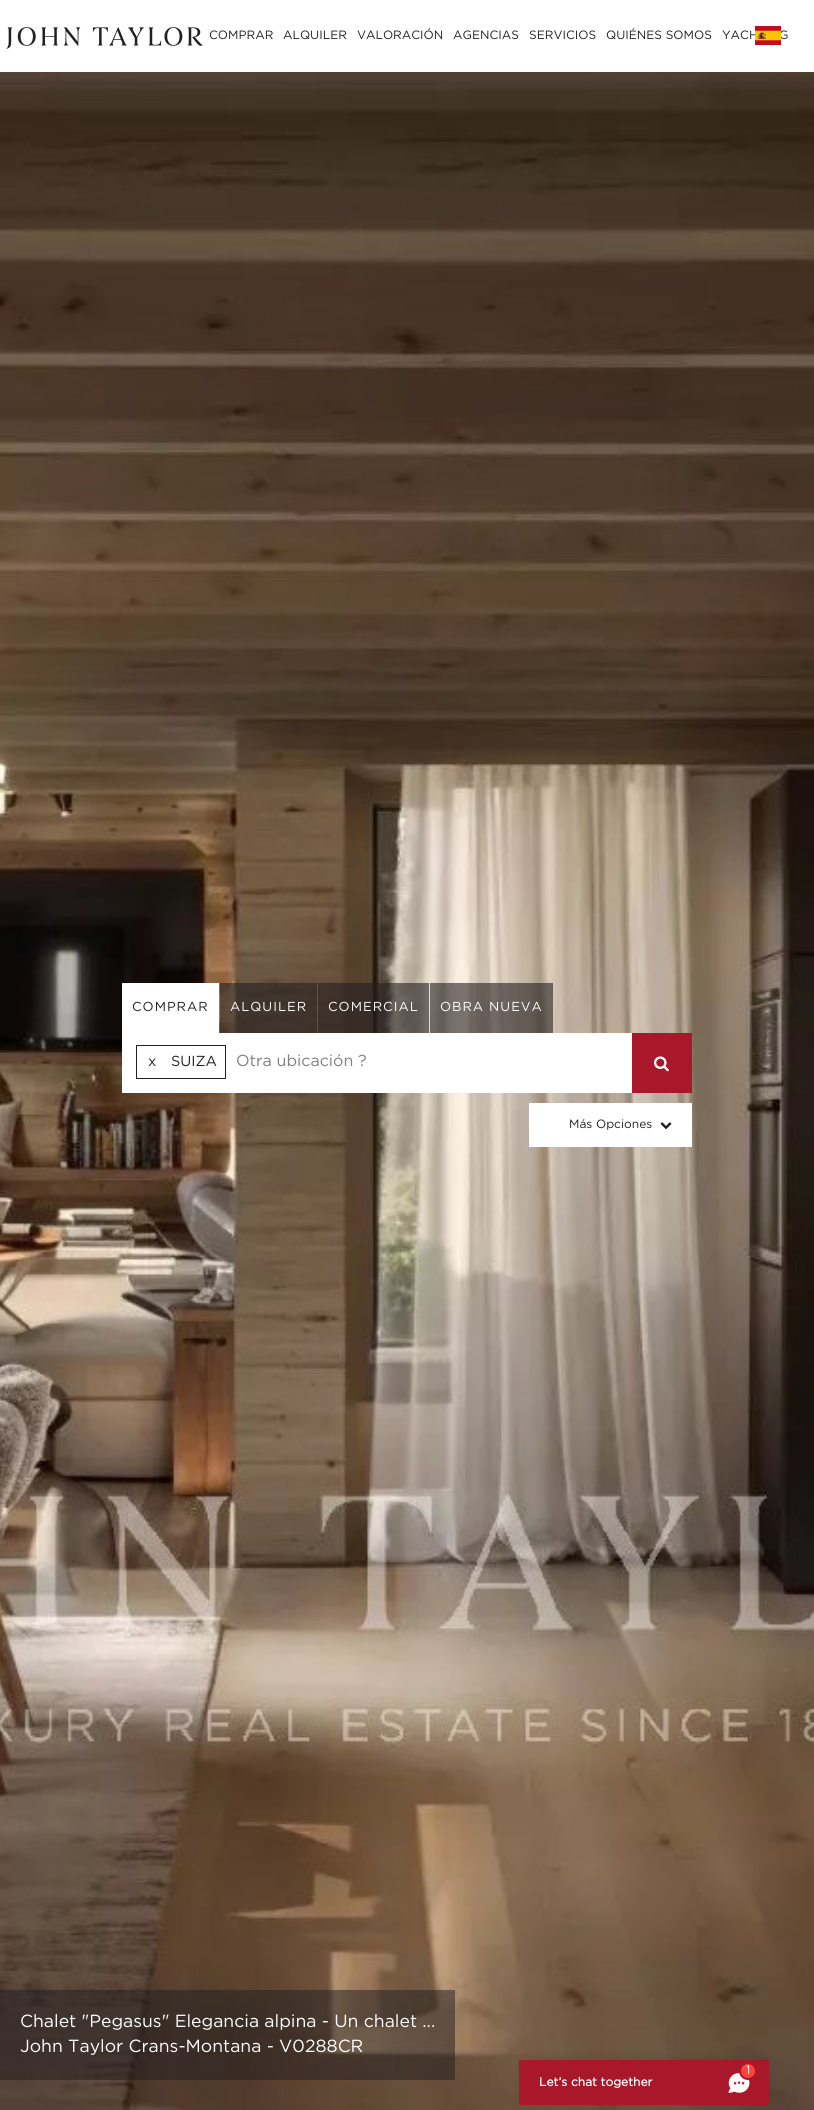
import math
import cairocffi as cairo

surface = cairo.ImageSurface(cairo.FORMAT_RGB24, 814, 2110)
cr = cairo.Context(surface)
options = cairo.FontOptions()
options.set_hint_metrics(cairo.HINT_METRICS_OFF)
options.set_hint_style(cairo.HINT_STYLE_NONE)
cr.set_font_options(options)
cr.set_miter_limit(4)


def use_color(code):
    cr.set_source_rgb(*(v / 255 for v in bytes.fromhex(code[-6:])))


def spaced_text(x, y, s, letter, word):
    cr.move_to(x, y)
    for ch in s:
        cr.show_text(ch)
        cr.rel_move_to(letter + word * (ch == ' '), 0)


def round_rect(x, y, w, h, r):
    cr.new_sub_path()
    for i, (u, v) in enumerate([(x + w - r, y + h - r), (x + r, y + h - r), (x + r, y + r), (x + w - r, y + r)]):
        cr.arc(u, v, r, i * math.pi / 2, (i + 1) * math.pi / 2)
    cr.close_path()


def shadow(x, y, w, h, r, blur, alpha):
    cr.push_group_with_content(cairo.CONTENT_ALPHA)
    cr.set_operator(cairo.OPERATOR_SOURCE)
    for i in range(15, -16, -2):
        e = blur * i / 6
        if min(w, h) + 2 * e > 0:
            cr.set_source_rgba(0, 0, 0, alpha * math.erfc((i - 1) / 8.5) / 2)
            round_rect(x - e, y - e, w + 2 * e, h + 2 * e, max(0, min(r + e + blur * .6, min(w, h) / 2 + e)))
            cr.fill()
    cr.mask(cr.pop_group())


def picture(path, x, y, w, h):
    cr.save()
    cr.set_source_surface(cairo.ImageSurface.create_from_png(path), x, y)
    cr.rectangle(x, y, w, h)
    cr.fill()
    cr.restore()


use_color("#ffffff")
cr.paint()
picture("img1.png", 6, 27, 197, 22)
cr.select_font_face("Gotham")
cr.set_font_size(12)
use_color("#231f20")
cr.move_to(722, 39)
cr.show_text("YACH")
cr.move_to(779, 39)
cr.show_text("G")
picture("img2.png", 755, 26, 27, 19)
cr.move_to(209, 39)
cr.show_text("COMPRAR")
cr.move_to(283, 39)
cr.show_text("ALQUILER")
cr.move_to(357, 39)
cr.show_text("VALORACIÓN")
cr.move_to(453, 39)
cr.show_text("AGENCIAS")
cr.move_to(529, 39)
cr.show_text("SERVICIOS")
cr.move_to(606, 39)
cr.show_text("QUIÉNES SOMOS")
picture("img3.png", 0, 72, 814, 2038)
use_color("#ffffff")
cr.rectangle(122, 983, 97, 50)
cr.fill()
cr.set_font_size(13)
use_color("#231f20")
spaced_text(132, 1011, "COMPRAR", 1, 0)
cr.set_source_rgba(0.137, 0.122, 0.125, 0.6)
cr.rectangle(220, 983, 97, 50)
cr.fill()
use_color("#ffffff")
spaced_text(230, 1011, "ALQUILER", 1, 0)
cr.set_source_rgba(0.137, 0.122, 0.125, 0.6)
cr.rectangle(318, 983, 111, 50)
cr.fill()
use_color("#ffffff")
spaced_text(328, 1011, "COMERCIAL", 1, 0)
cr.set_source_rgba(0.137, 0.122, 0.125, 0.6)
cr.rectangle(430, 983, 123, 50)
cr.fill()
use_color("#ffffff")
spaced_text(440, 1011, "OBRA NUEVA", 1, 0)
cr.rectangle(122, 1033, 510, 60)
cr.fill()
cr.rectangle(136.5, 1045.5, 89, 33)
use_color("#231f20")
cr.set_line_width(1)
cr.stroke()
cr.set_font_size(14.5)
cr.move_to(148, 1066)
cr.show_text("x")
cr.move_to(171, 1066)
cr.show_text("SUIZA")
cr.set_font_size(16)
use_color("#808080")
cr.move_to(236, 1066)
cr.show_text("Otra ubicación ?")
use_color("#a8172a")
cr.rectangle(632, 1033, 60, 60)
cr.fill()
picture("img4.png", 654, 1056, 15, 16)
use_color("#ffffff")
cr.rectangle(529, 1103, 163, 44)
cr.fill()
cr.set_font_size(12)
use_color("#231f20")
cr.move_to(569, 1128)
cr.show_text("Más Opciones")
picture("img5.png", 660, 1122, 12, 8)
cr.set_source_rgba(0.137, 0.122, 0.125, 0.5)
cr.rectangle(0, 1990, 455, 90)
cr.fill()
cr.set_font_size(17.6)
use_color("#ffffff")
cr.move_to(20, 2027)
cr.show_text("Chalet \"Pegasus\" Elegancia alpina - Un chalet ...")
cr.move_to(20, 2052)
cr.show_text("John Taylor Crans-Montana - V0288CR")
use_color("#000000")
shadow(519, 2058, 250, 45, 2, 4, 0.1)
use_color("#a8172a")
round_rect(519, 2060, 250, 45, 2)
cr.fill()
picture("img6.png", 728, 2073, 22, 20)
use_color("#ff443a")
cr.arc(748, 2071, 8, 0, 2 * math.pi)
cr.fill_preserve()
use_color("#a8172a")
cr.set_line_width(2)
cr.stroke()
cr.set_font_size(12)
use_color("#ffffff")
cr.move_to(746, 2074)
cr.show_text("1")
cr.select_font_face("Gotham", cairo.FONT_SLANT_NORMAL, cairo.FONT_WEIGHT_BOLD)
cr.move_to(539, 2086)
cr.show_text("Let’s chat together")
surface.write_to_png("result.png")
